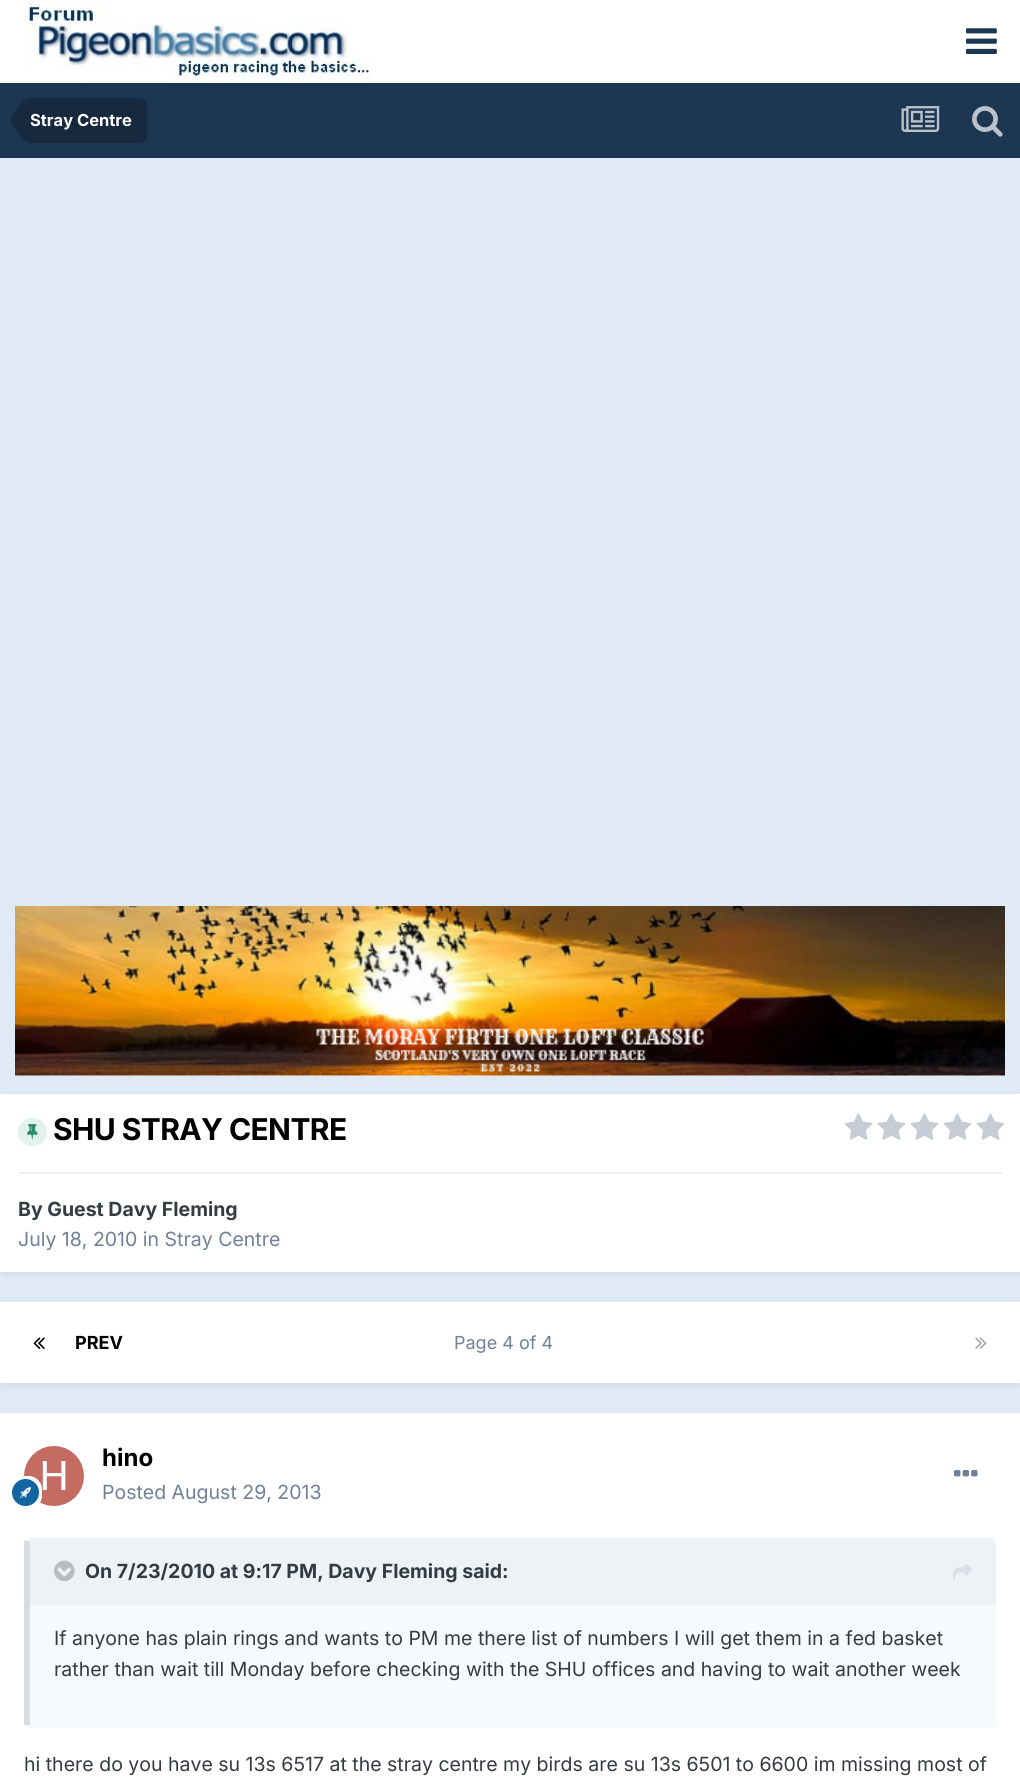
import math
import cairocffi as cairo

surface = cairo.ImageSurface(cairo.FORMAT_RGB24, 1020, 1788)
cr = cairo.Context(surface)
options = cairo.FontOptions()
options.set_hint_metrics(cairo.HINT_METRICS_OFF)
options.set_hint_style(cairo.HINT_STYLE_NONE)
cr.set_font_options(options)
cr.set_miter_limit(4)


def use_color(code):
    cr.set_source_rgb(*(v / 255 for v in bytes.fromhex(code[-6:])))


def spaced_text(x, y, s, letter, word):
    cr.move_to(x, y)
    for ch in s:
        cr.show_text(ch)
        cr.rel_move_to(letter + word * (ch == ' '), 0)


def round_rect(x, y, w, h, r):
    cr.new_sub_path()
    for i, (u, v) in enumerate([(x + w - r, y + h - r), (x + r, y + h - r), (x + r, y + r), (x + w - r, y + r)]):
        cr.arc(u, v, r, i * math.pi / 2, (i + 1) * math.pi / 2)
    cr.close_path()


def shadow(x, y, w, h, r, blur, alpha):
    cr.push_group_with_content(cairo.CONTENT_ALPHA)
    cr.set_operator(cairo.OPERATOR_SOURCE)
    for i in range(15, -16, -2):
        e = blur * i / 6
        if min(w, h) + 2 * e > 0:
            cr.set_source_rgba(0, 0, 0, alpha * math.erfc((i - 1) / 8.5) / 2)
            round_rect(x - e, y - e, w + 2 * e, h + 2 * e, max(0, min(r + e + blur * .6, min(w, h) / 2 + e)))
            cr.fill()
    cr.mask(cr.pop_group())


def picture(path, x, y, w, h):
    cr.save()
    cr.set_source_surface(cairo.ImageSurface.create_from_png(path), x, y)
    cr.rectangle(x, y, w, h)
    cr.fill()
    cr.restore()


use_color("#e0eaf4")
cr.paint()
use_color("#ffffff")
cr.rectangle(0, 0, 1020, 83)
cr.fill()
picture("img1.png", 23, 0, 350, 82)
picture("img2.png", 966, 28, 31, 26)
use_color("#1d3652")
cr.rectangle(0, 83, 1020, 75)
cr.fill()
use_color("#16293e")
cr.new_path()
cr.move_to(30, 98)
cr.line_to(139, 98)
cr.curve_to(143.5, 98, 147, 101.5, 147, 106)
cr.line_to(147, 135)
cr.curve_to(147, 139.5, 143.5, 143, 139, 143)
cr.line_to(30, 143)
cr.close_path()
cr.fill()
cr.new_path()
cr.move_to(30, 120)
cr.line_to(30, 142)
cr.curve_to(27, 142, 24.5, 141, 22, 138)
cr.line_to(10.5, 122)
cr.line_to(10, 120)
cr.close_path()
cr.move_to(30, 120)
cr.line_to(10, 120)
cr.line_to(10.5, 118)
cr.line_to(22, 102)
cr.curve_to(24.5, 99, 27, 98, 30, 98)
cr.close_path()
cr.fill()
cr.select_font_face("Inter", cairo.FONT_SLANT_NORMAL, cairo.FONT_WEIGHT_BOLD)
cr.set_font_size(16.5)
use_color("#ffffff")
cr.move_to(30, 126)
cr.show_text("Stray Centre")
picture("img3.png", 901, 106, 39, 26)
picture("img4.png", 972, 106, 31, 31)
use_color("#f7fafc")
cr.rectangle(15, 1075, 990, 1)
cr.fill()
picture("img5.png", 15, 906, 990, 170)
use_color("#2d3748")
shadow(2, 1098, 1017, 176, 0, 3, 0.1)
use_color("#ffffff")
cr.rectangle(0, 1094, 1020, 178)
cr.fill()
use_color("#e3f3ec")
round_rect(18, 1118, 29, 28, 14)
cr.fill()
picture("img6.png", 27, 1124, 11, 16)
cr.set_font_size(30)
use_color("#000000")
spaced_text(53, 1140, "SHU STRAY CENTRE", -0.6, 0)
picture("img7.png", 844, 1113, 29, 27)
picture("img7.png", 877, 1113, 29, 27)
picture("img7.png", 910, 1113, 29, 27)
picture("img7.png", 943, 1113, 29, 27)
picture("img7.png", 976, 1113, 29, 27)
use_color("#efeff0")
cr.rectangle(18, 1172, 984, 2)
cr.fill()
cr.set_font_size(19.5)
use_color("#353c41")
cr.move_to(18, 1216)
cr.show_text("By Guest Davy Fleming")
cr.select_font_face("Inter")
use_color("#718096")
cr.move_to(18, 1246)
cr.show_text("July 18, 2010 in Stray Centre")
use_color("#2d3748")
shadow(2, 1307, 1017, 78, 0, 3, 0.1)
use_color("#ffffff")
cr.rectangle(0, 1302, 1020, 81)
cr.fill()
picture("img8.png", 33, 1337, 12, 12)
cr.select_font_face("Inter", cairo.FONT_SLANT_NORMAL, cairo.FONT_WEIGHT_BOLD)
cr.set_font_size(18)
use_color("#000000")
cr.move_to(75, 1349)
cr.show_text("PREV")
cr.select_font_face("Inter")
use_color("#718096")
cr.move_to(454, 1349)
cr.show_text("Page 4 of 4")
picture("img9.png", 975, 1337, 12, 12)
use_color("#ffffff")
cr.rectangle(0, 1413, 1020, 375)
cr.fill()
picture("img10.png", 24, 1446, 60, 60)
picture("img11.png", 12, 1476, 30, 30)
cr.select_font_face("Inter", cairo.FONT_SLANT_NORMAL, cairo.FONT_WEIGHT_BOLD)
cr.set_font_size(24)
use_color("#000000")
cr.move_to(102, 1466)
cr.show_text("hino")
cr.select_font_face("Inter")
cr.set_font_size(19.5)
use_color("#718096")
cr.move_to(102, 1499)
cr.show_text("Posted August 29, 2013")
picture("img12.png", 954, 1470, 24, 7)
use_color("#f7fafc")
round_rect(24, 1538, 972, 190, 6)
cr.fill()
cr.set_source_rgba(0.176, 0.216, 0.282, 0.15)
cr.rectangle(24, 1541, 6, 184)
cr.fill()
use_color("#edf2f7")
cr.new_path()
cr.move_to(30, 1538)
cr.line_to(990, 1538)
cr.curve_to(993.5, 1538, 996, 1540.5, 996, 1544)
cr.line_to(996, 1605)
cr.line_to(30, 1605)
cr.close_path()
cr.fill()
picture("img13.png", 54, 1560, 21, 22)
cr.select_font_face("Inter", cairo.FONT_SLANT_NORMAL, cairo.FONT_WEIGHT_BOLD)
use_color("#353c41")
cr.move_to(85, 1578)
cr.show_text("On 7/23/2010 at 9:17 PM, Davy Fleming said:")
picture("img14.png", 952, 1563, 20, 18)
cr.select_font_face("Inter")
cr.move_to(54, 1645)
cr.show_text("If anyone has plain rings and wants to PM me there list of numbers I will get them in a fed basket")
cr.move_to(54, 1676)
cr.show_text("rather than wait till Monday before checking with the SHU offices and having to wait another week")
cr.move_to(24, 1771)
cr.show_text("hi there do you have su 13s 6517 at the stray centre my birds are su 13s 6501 to 6600 im missing most of")
surface.write_to_png("result.png")
